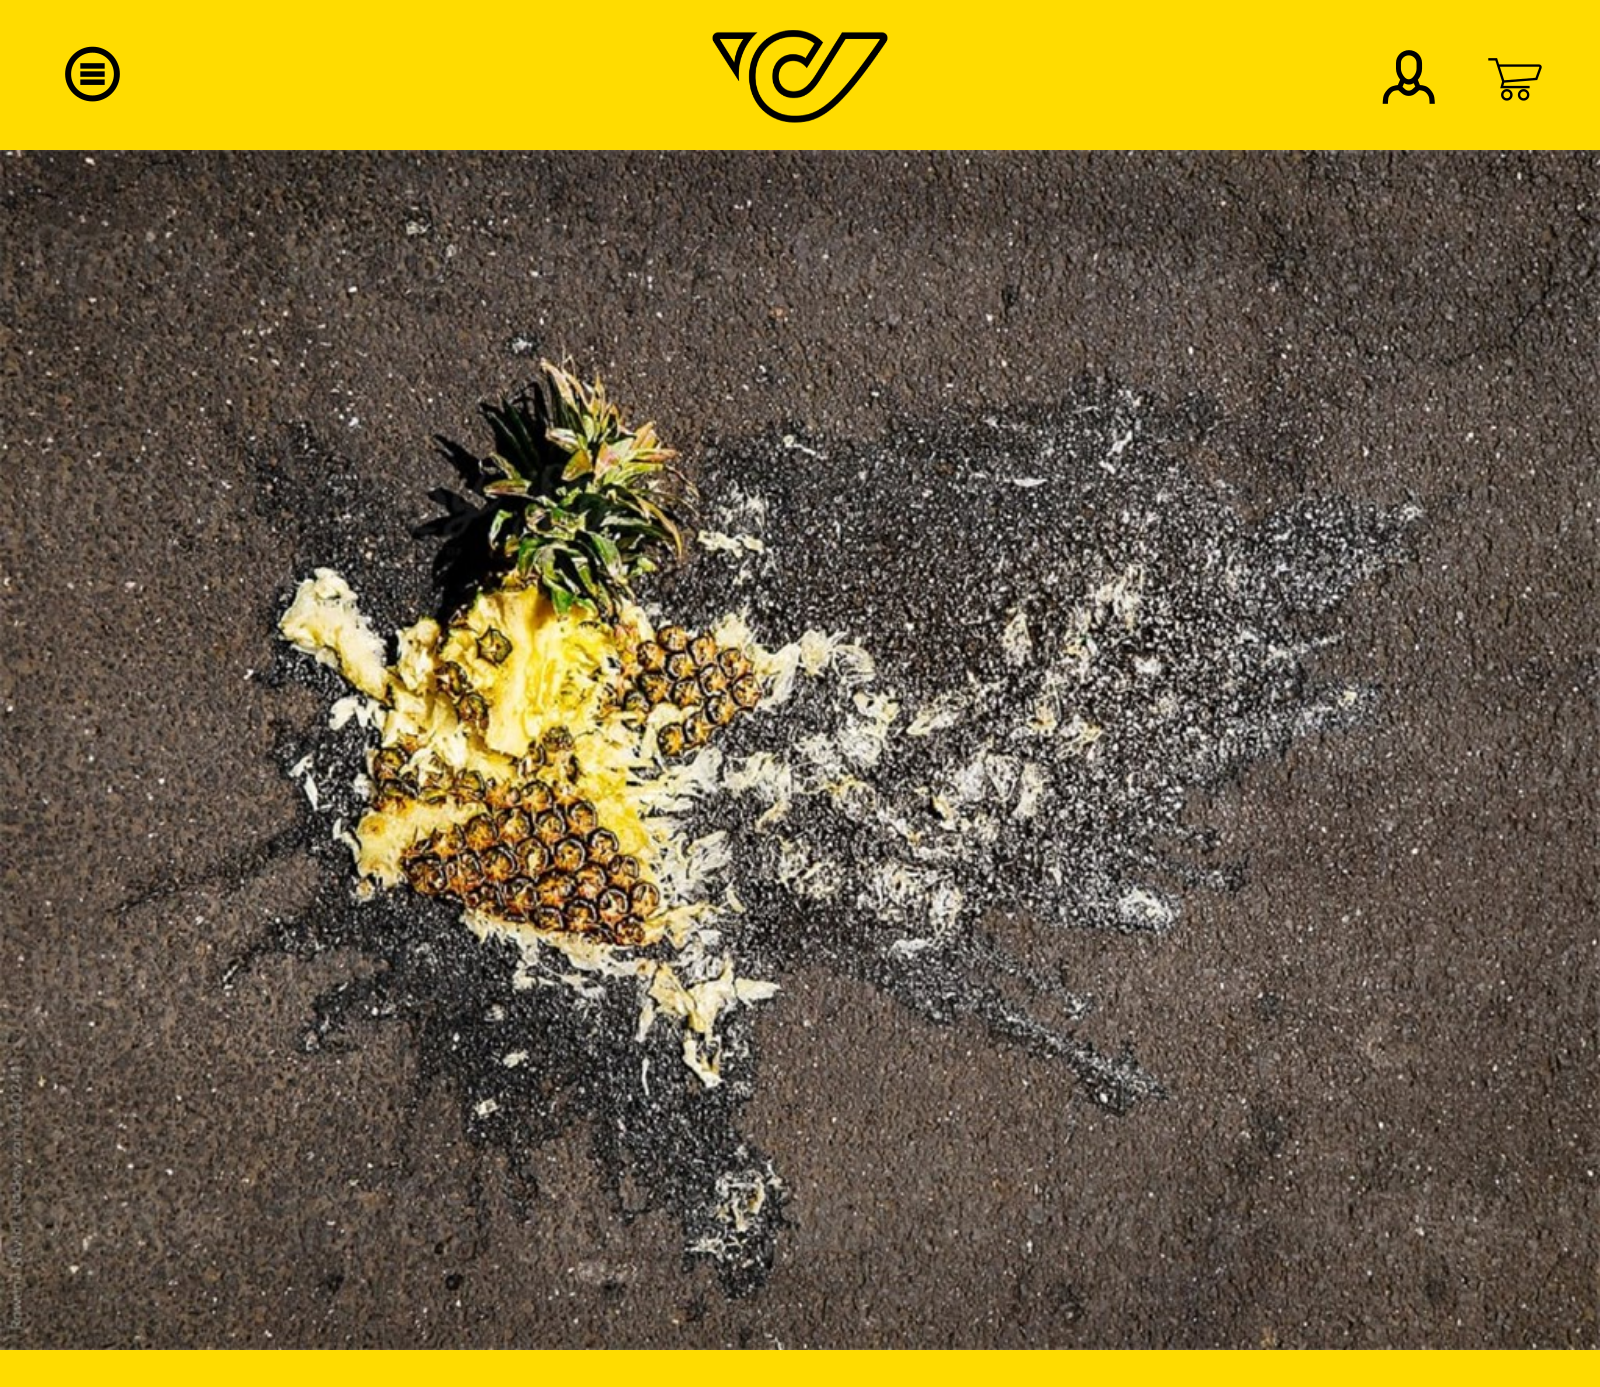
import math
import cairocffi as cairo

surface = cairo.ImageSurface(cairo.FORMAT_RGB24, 1600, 1387)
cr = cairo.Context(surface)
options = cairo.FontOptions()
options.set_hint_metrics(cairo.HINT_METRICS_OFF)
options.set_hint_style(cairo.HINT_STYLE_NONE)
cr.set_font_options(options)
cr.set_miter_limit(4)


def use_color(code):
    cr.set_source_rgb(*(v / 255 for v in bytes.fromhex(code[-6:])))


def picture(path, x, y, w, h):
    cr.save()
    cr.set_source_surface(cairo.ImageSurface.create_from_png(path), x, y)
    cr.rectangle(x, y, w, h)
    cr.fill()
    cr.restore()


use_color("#ffffff")
cr.paint()
use_color("#ffdc00")
cr.rectangle(0, 0, 1600, 150)
cr.fill()
picture("img1.png", 65, 46, 55, 56)
picture("img2.png", 712, 30, 176, 93)
picture("img3.png", 1382, 50, 53, 54)
picture("img4.png", 1488, 58, 54, 43)
picture("img5.png", 0, 150, 1600, 1200)
cr.rectangle(0, 1350, 1600, 37)
cr.fill()
surface.write_to_png("result.png")
